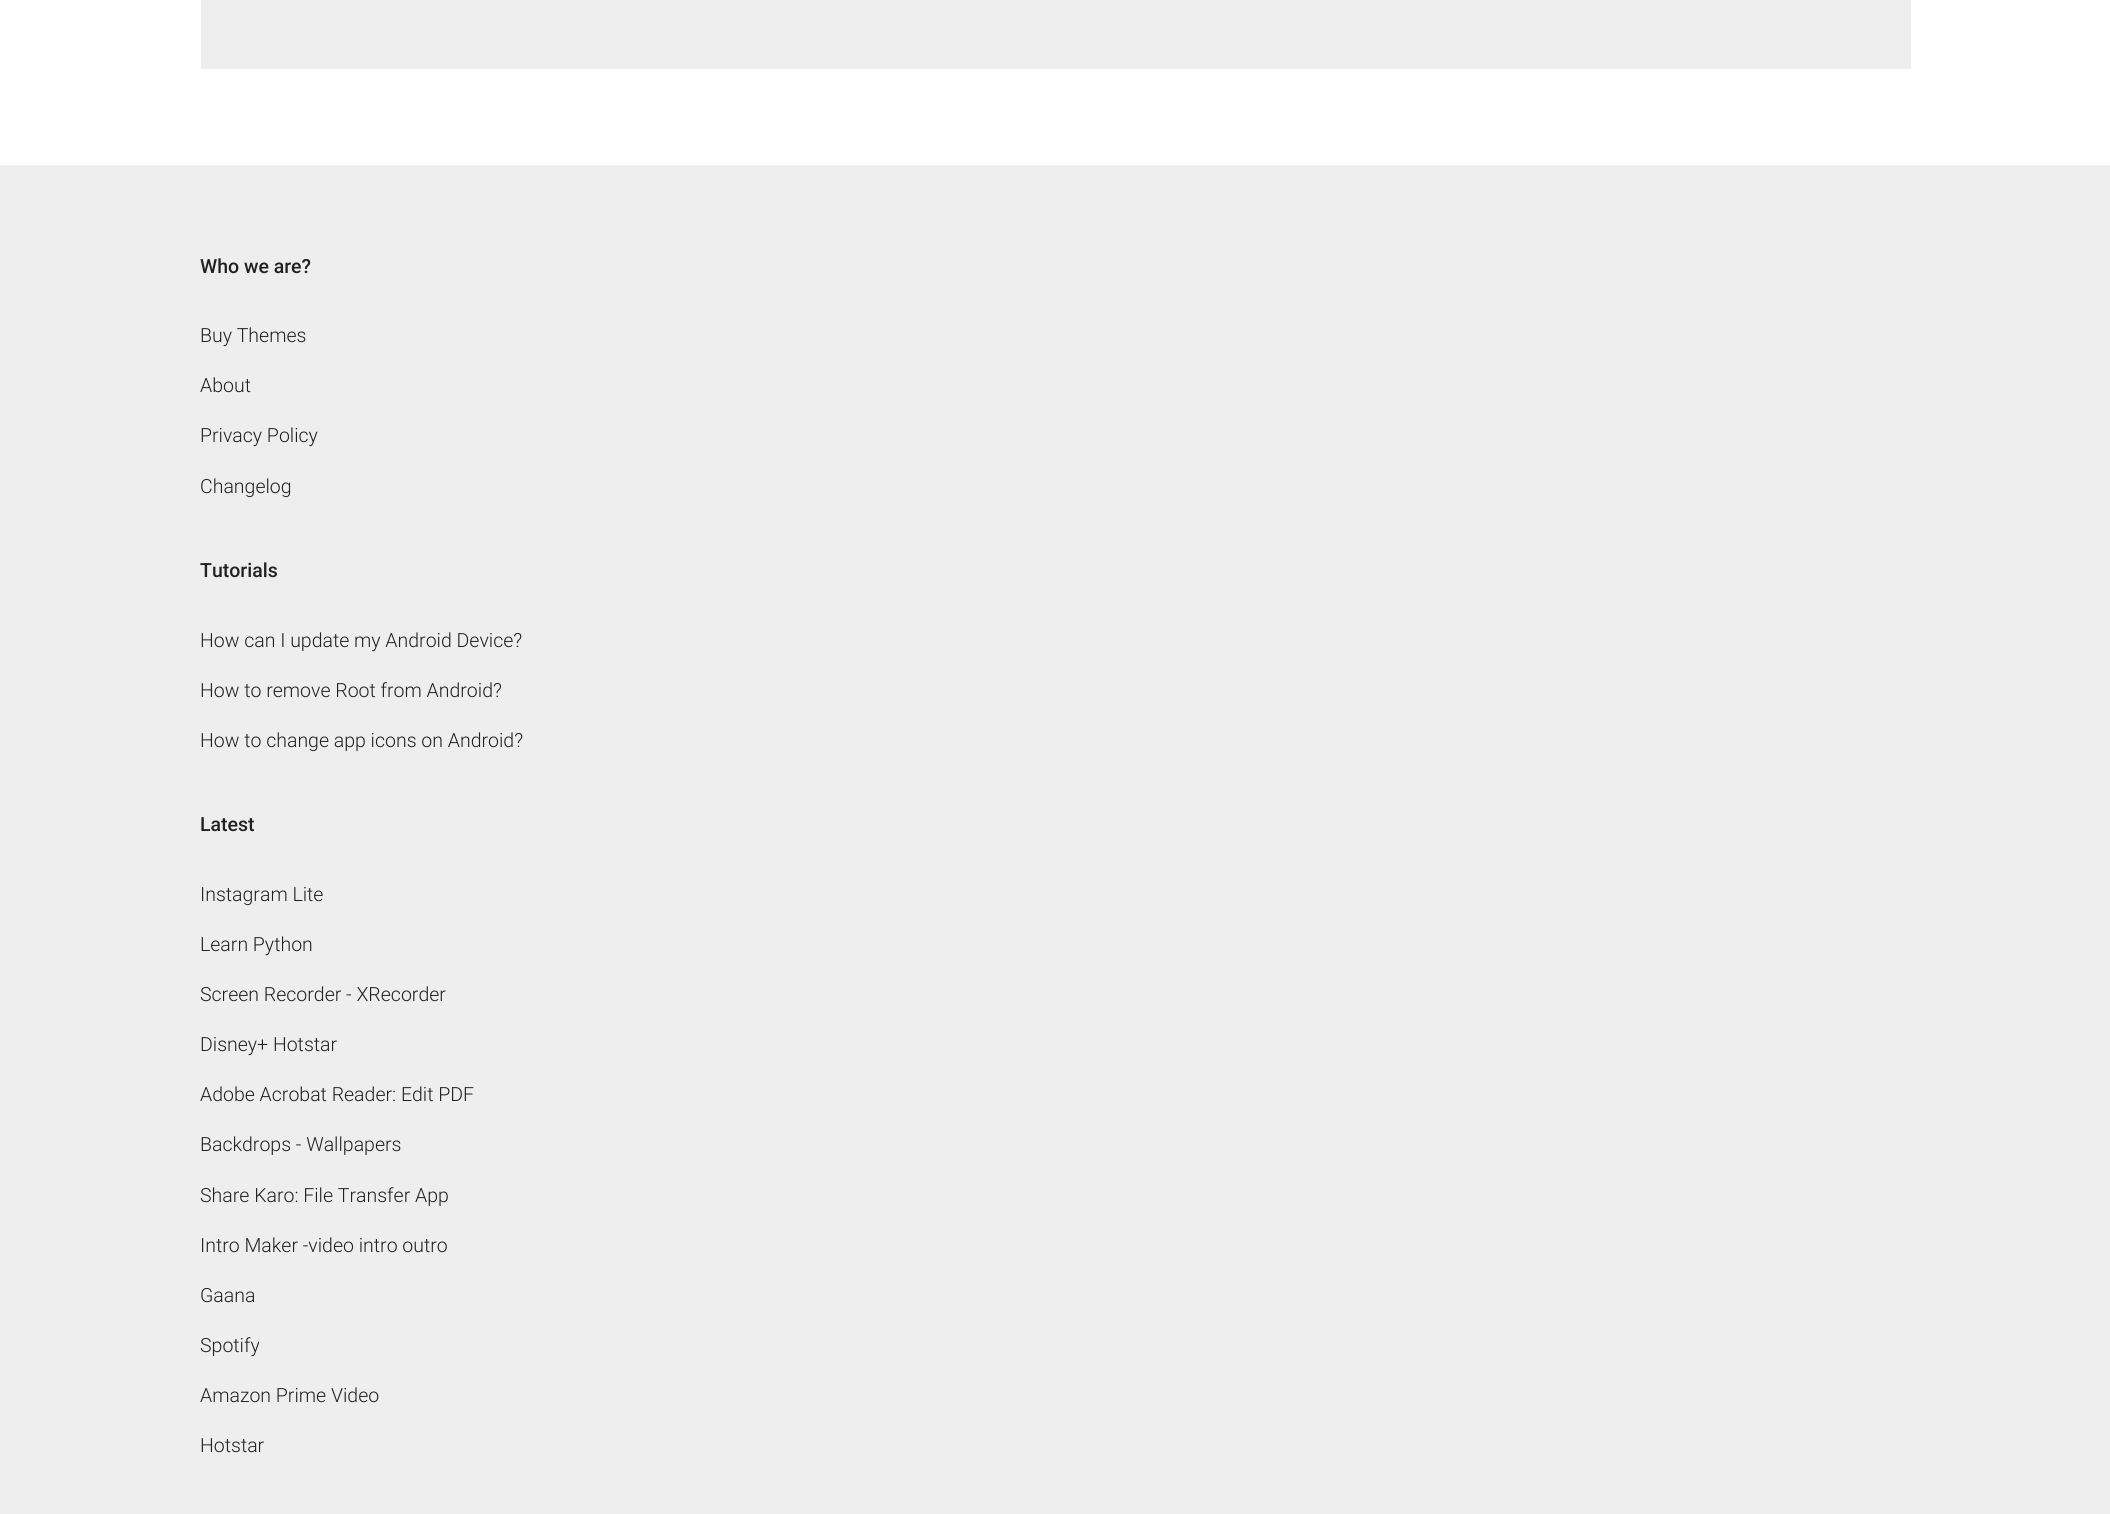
import math
import cairocffi as cairo

surface = cairo.ImageSurface(cairo.FORMAT_RGB24, 2110, 1514)
cr = cairo.Context(surface)
options = cairo.FontOptions()
options.set_hint_metrics(cairo.HINT_METRICS_OFF)
options.set_hint_style(cairo.HINT_STYLE_NONE)
cr.set_font_options(options)
cr.set_miter_limit(4)


def use_color(code):
    cr.set_source_rgb(*(v / 255 for v in bytes.fromhex(code[-6:])))


use_color("#ffffff")
cr.paint()
use_color("#eeeeee")
cr.rectangle(201, 0, 1710, 69)
cr.fill()
cr.rectangle(0, 165, 2110, 1349)
cr.fill()
cr.select_font_face("Roboto Medium")
cr.set_font_size(19.5)
use_color("#212121")
cr.move_to(200, 273)
cr.show_text("Who we are?")
cr.select_font_face("Roboto Light")
cr.move_to(200, 342)
cr.show_text("Buy Themes")
cr.move_to(200, 392)
cr.show_text("About")
cr.move_to(200, 442)
cr.show_text("Privacy Policy")
cr.move_to(200, 493)
cr.show_text("Changelog")
cr.select_font_face("Roboto Medium")
cr.move_to(200, 577)
cr.show_text("Tutorials")
cr.select_font_face("Roboto Light")
cr.move_to(200, 647)
cr.show_text("How can I update my Android Device?")
cr.move_to(200, 697)
cr.show_text("How to remove Root from Android?")
cr.move_to(200, 747)
cr.show_text("How to change app icons on Android?")
cr.select_font_face("Roboto Medium")
cr.move_to(200, 831)
cr.show_text("Latest")
cr.select_font_face("Roboto Light")
cr.move_to(200, 901)
cr.show_text("Instagram Lite")
cr.move_to(200, 951)
cr.show_text("Learn Python")
cr.move_to(200, 1001)
cr.show_text("Screen Recorder - XRecorder")
cr.move_to(200, 1051)
cr.show_text("Disney+ Hotstar")
cr.move_to(200, 1101)
cr.show_text("Adobe Acrobat Reader: Edit PDF")
cr.move_to(200, 1151)
cr.show_text("Backdrops - Wallpapers")
cr.move_to(200, 1202)
cr.show_text("Share Karo: File Transfer App")
cr.move_to(200, 1252)
cr.show_text("Intro Maker -video intro outro")
cr.move_to(200, 1302)
cr.show_text("Gaana")
cr.move_to(200, 1352)
cr.show_text("Spotify")
cr.move_to(200, 1402)
cr.show_text("Amazon Prime Video")
cr.move_to(200, 1452)
cr.show_text("Hotstar")
surface.write_to_png("result.png")
